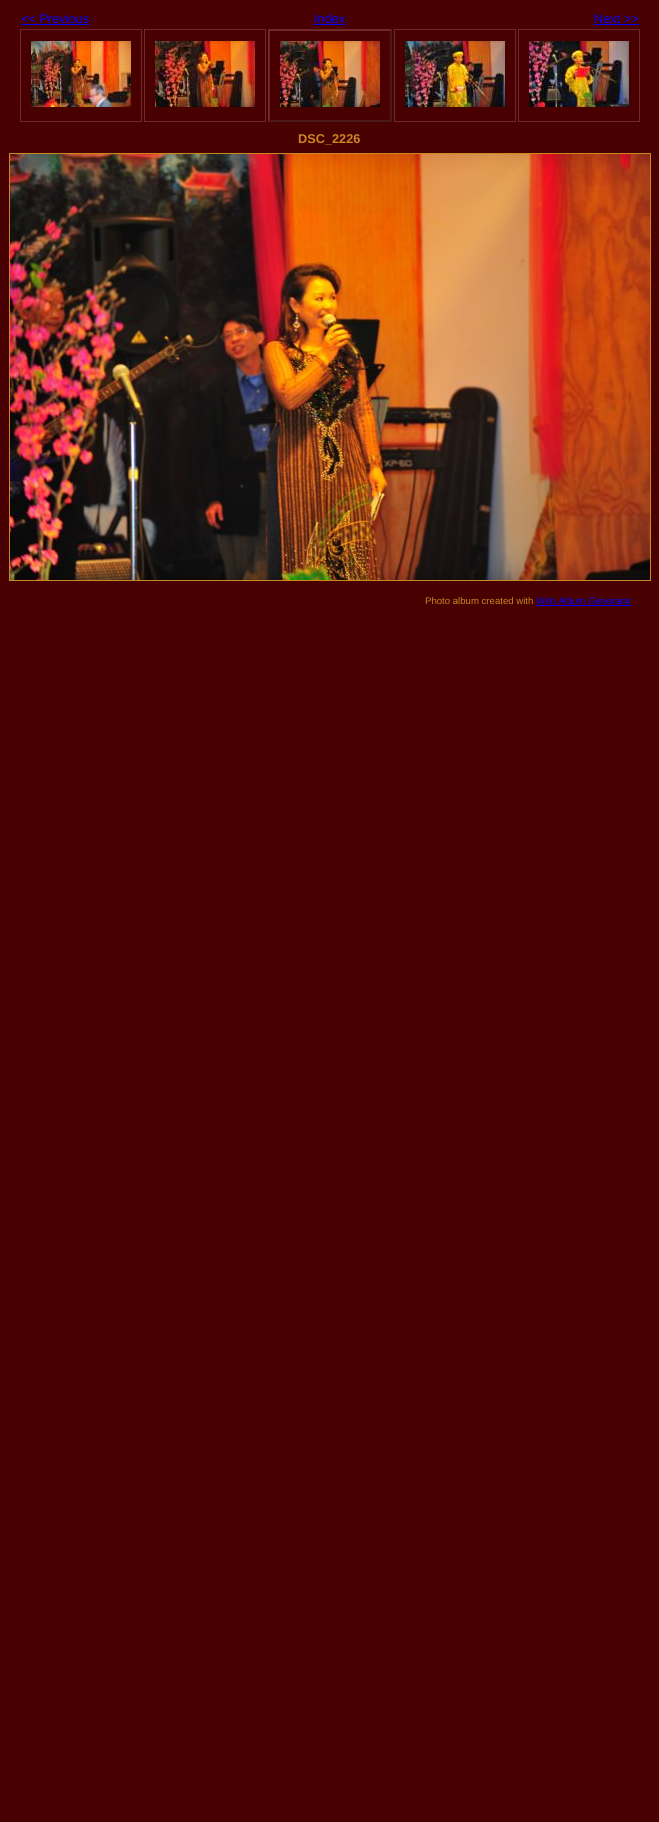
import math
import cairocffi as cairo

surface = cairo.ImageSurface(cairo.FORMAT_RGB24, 659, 1822)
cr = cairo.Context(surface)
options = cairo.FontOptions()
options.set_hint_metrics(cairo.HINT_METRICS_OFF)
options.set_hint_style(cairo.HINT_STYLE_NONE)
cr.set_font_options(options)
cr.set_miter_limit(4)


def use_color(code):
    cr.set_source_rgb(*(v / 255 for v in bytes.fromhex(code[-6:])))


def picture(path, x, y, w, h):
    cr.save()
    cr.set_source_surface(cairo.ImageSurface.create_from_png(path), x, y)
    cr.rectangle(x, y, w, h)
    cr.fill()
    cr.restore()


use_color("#480000")
cr.paint()
cr.select_font_face("Liberation Sans")
cr.set_font_size(12.75)
use_color("#0000ff")
cr.move_to(21, 23)
cr.show_text("<< Previous")
cr.rectangle(21, 24, 68, 1)
cr.fill()
cr.move_to(314, 23)
cr.show_text("Index")
cr.rectangle(314, 24, 31, 1)
cr.fill()
cr.move_to(594, 23)
cr.show_text("Next >>")
cr.rectangle(594, 24, 45, 1)
cr.fill()
cr.rectangle(20.5, 29.5, 121, 92)
use_color("#702828")
cr.set_line_width(1)
cr.stroke()
picture("img1.png", 31, 41, 100, 66)
cr.rectangle(144.5, 29.5, 121, 92)
cr.stroke()
picture("img2.png", 155, 41, 100, 66)
cr.new_path()
cr.move_to(268, 29)
cr.line_to(392, 29)
cr.line_to(390, 31)
cr.line_to(270, 31)
cr.close_path()
cr.fill()
use_color("#4b1b1b")
cr.new_path()
cr.move_to(392, 29)
cr.line_to(392, 122)
cr.line_to(390, 120)
cr.line_to(390, 31)
cr.close_path()
cr.fill()
cr.new_path()
cr.move_to(392, 122)
cr.line_to(268, 122)
cr.line_to(270, 120)
cr.line_to(390, 120)
cr.close_path()
cr.fill()
use_color("#702828")
cr.new_path()
cr.move_to(268, 122)
cr.line_to(268, 29)
cr.line_to(270, 31)
cr.line_to(270, 120)
cr.close_path()
cr.fill()
picture("img3.png", 280, 41, 100, 66)
cr.rectangle(394.5, 29.5, 121, 92)
cr.stroke()
picture("img4.png", 405, 41, 100, 66)
cr.rectangle(518.5, 29.5, 121, 92)
cr.stroke()
picture("img5.png", 529, 41, 100, 66)
cr.select_font_face("Liberation Sans", cairo.FONT_SLANT_NORMAL, cairo.FONT_WEIGHT_BOLD)
use_color("#ca8722")
cr.move_to(298, 143)
cr.show_text("DSC_2226")
cr.rectangle(9.5, 153.5, 641, 427)
cr.stroke()
picture("img6.png", 10, 154, 640, 426)
cr.select_font_face("Liberation Sans")
cr.set_font_size(9.6)
cr.move_to(425, 604)
cr.show_text("Photo album created with")
use_color("#0000ff")
cr.move_to(536, 604)
cr.show_text("Web Album Generator")
cr.rectangle(536, 605, 96, 1)
cr.fill()
surface.write_to_png("result.png")
